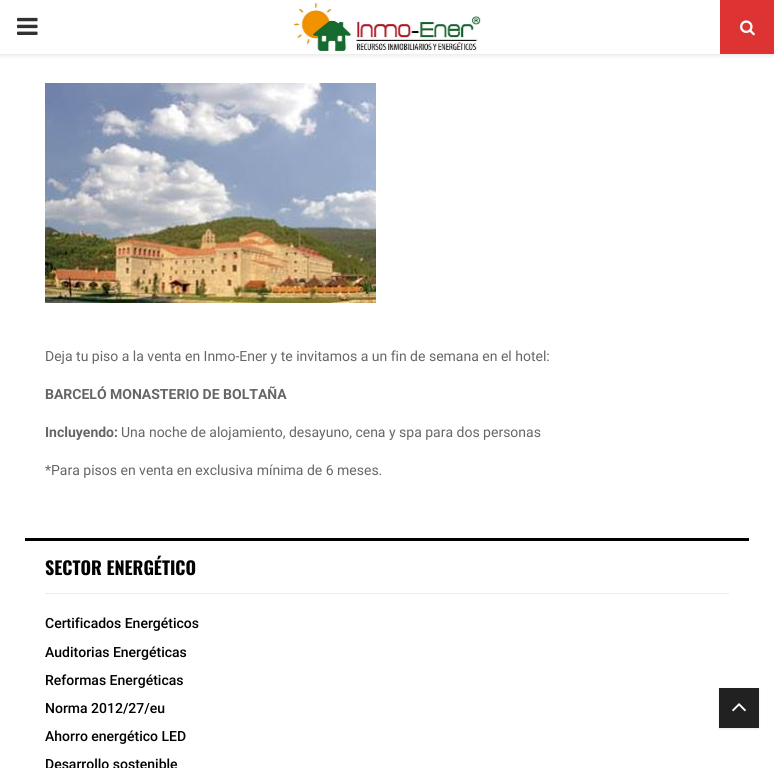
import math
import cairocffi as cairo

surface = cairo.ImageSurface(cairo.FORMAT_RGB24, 774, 768)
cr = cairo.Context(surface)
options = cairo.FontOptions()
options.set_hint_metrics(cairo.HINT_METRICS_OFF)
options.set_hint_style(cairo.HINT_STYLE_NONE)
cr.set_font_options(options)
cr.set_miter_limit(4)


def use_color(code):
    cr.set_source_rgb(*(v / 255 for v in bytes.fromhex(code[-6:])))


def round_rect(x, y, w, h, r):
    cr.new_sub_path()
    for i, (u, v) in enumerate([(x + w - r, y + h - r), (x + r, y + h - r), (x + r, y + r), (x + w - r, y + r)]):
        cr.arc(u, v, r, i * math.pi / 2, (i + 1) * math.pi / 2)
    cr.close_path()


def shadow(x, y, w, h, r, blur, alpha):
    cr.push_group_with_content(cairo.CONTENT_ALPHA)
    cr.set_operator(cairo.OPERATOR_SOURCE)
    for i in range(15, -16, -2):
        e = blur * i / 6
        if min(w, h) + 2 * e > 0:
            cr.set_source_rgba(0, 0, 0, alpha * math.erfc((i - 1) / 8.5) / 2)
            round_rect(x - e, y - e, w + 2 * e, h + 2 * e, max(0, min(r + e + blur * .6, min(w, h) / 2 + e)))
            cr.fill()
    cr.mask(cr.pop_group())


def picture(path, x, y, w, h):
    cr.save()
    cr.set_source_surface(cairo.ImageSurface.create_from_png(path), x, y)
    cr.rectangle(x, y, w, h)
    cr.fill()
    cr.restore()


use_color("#ffffff")
cr.paint()
cr.save()
cr.rectangle(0, 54, 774, 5)
cr.clip()
use_color("#bebebe")
shadow(0, 1, 774, 54, 0, 2.5, 0.46)
cr.restore()
picture("img1.png", 17, 17, 21, 18)
picture("img2.png", 294, 3, 187, 48)
use_color("#dd3333")
cr.rectangle(720, 0, 54, 54)
cr.fill()
picture("img3.png", 740, 20, 15, 16)
picture("img4.png", 45, 83, 331, 220)
cr.select_font_face("Roboto")
cr.set_font_size(14)
use_color("#666666")
cr.move_to(45, 361)
cr.show_text("Deja tu piso a la venta en Inmo-Ener y te invitamos a un fin de semana en el hotel:")
cr.select_font_face("Roboto", cairo.FONT_SLANT_NORMAL, cairo.FONT_WEIGHT_BOLD)
cr.move_to(45, 399)
cr.show_text("BARCELÓ MONASTERIO DE BOLTAÑA")
cr.move_to(45, 437)
cr.show_text("Incluyendo:")
cr.select_font_face("Roboto")
cr.move_to(121, 437)
cr.show_text("Una noche de alojamiento, desayuno, cena y spa para dos personas")
cr.move_to(45, 475)
cr.show_text("*Para pisos en venta en exclusiva mínima de 6 meses.")
use_color("#ececec")
cr.rectangle(45, 593, 684, 1)
cr.fill()
use_color("#000000")
cr.rectangle(25, 538, 724, 3)
cr.fill()
cr.select_font_face("Oswald", cairo.FONT_SLANT_NORMAL, cairo.FONT_WEIGHT_BOLD)
cr.set_font_size(18)
cr.move_to(45, 575)
cr.show_text("SECTOR ENERGÉTICO")
cr.select_font_face("Roboto Medium")
cr.set_font_size(14)
cr.move_to(45, 628)
cr.show_text("Certificados Energéticos")
cr.move_to(45, 657)
cr.show_text("Auditorias Energéticas")
cr.move_to(45, 685)
cr.show_text("Reformas Energéticas")
cr.move_to(45, 713)
cr.show_text("Norma 2012/27/eu")
cr.move_to(45, 741)
cr.show_text("Ahorro energético LED")
cr.move_to(45, 769)
cr.show_text("Desarrollo sostenible")
use_color("#000000")
shadow(719, 689, 40, 40, 0, 1, 0.1)
use_color("#212121")
cr.rectangle(719, 688, 40, 40)
cr.fill()
picture("img5.png", 732, 703, 14, 9)
surface.write_to_png("result.png")
